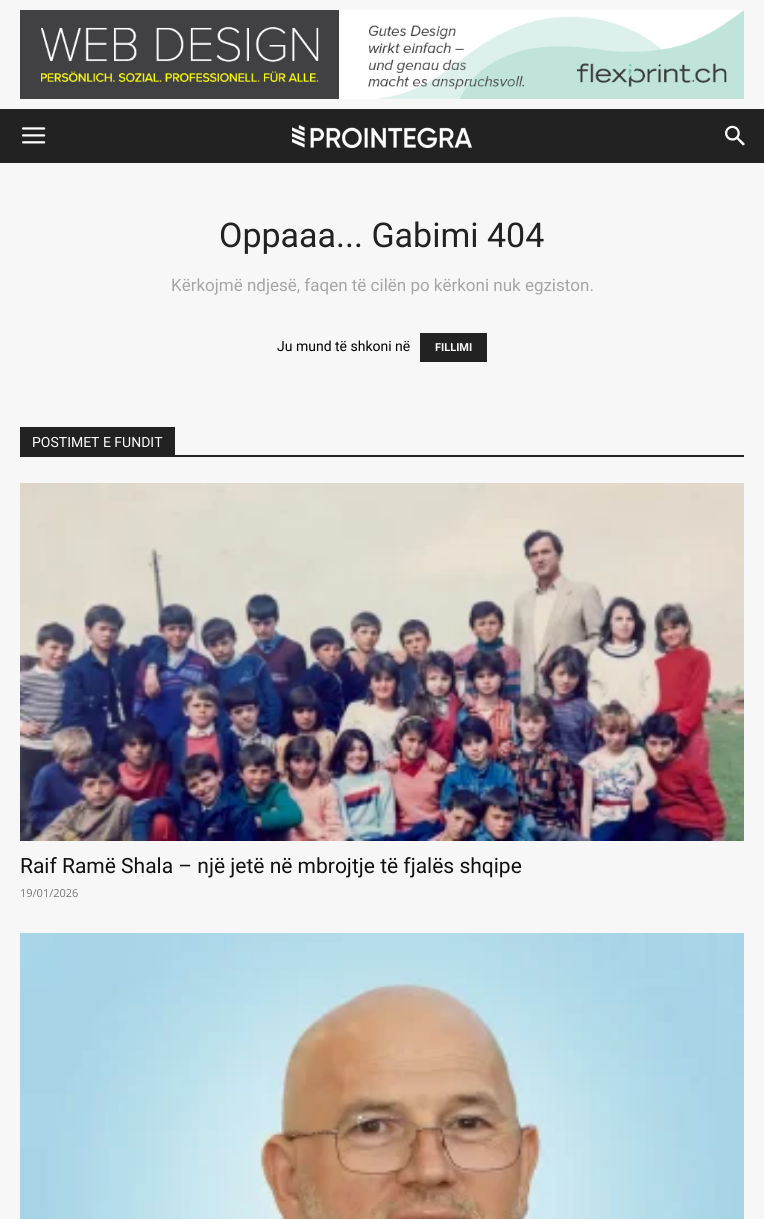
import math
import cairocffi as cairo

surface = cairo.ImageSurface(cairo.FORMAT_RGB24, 764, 1219)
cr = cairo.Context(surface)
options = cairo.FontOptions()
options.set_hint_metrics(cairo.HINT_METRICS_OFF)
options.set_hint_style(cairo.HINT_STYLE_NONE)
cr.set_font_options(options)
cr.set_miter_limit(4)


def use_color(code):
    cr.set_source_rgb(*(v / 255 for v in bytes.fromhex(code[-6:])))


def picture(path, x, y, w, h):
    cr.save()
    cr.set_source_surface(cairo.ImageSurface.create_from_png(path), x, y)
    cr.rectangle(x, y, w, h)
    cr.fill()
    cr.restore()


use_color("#f7f7f7")
cr.paint()
picture("img1.png", 20, 10, 724, 89)
use_color("#222222")
cr.rectangle(0, 109, 764, 54)
cr.fill()
picture("img2.png", 22, 127, 24, 17)
picture("img3.png", 292, 125, 180, 23)
picture("img4.png", 725, 125, 20, 21)
cr.select_font_face("Roboto")
cr.set_font_size(34)
cr.move_to(219, 247)
cr.show_text("Oppaaa... Gabimi 404")
cr.set_font_size(17)
use_color("#a6a6a6")
cr.move_to(171, 291)
cr.show_text("Kërkojmë ndjesë, faqen të cilën po kërkoni nuk egziston.")
cr.set_font_size(14)
use_color("#000000")
cr.move_to(277, 351)
cr.show_text("Ju mund të shkoni në")
use_color("#222222")
cr.rectangle(420, 333, 67, 29)
cr.fill()
cr.select_font_face("Roboto", cairo.FONT_SLANT_NORMAL, cairo.FONT_WEIGHT_BOLD)
cr.set_font_size(11)
use_color("#ffffff")
cr.move_to(435, 351)
cr.show_text("FILLIMI")
use_color("#222222")
cr.rectangle(20, 455, 724, 2)
cr.fill()
cr.rectangle(20, 427, 155, 28)
cr.fill()
cr.select_font_face("Roboto")
cr.set_font_size(14)
use_color("#ffffff")
cr.move_to(32, 447)
cr.show_text("POSTIMET E FUNDIT")
picture("img5.png", 20, 483, 724, 358)
cr.set_font_size(21)
use_color("#111111")
cr.move_to(20, 873)
cr.show_text("Raif Ramë Shala – një jetë në mbrojtje të fjalës shqipe")
cr.select_font_face("Open Sans")
cr.set_font_size(11)
use_color("#767676")
cr.move_to(20, 897)
cr.show_text("19/01/2026")
picture("img6.png", 20, 933, 724, 286)
surface.write_to_png("result.png")
